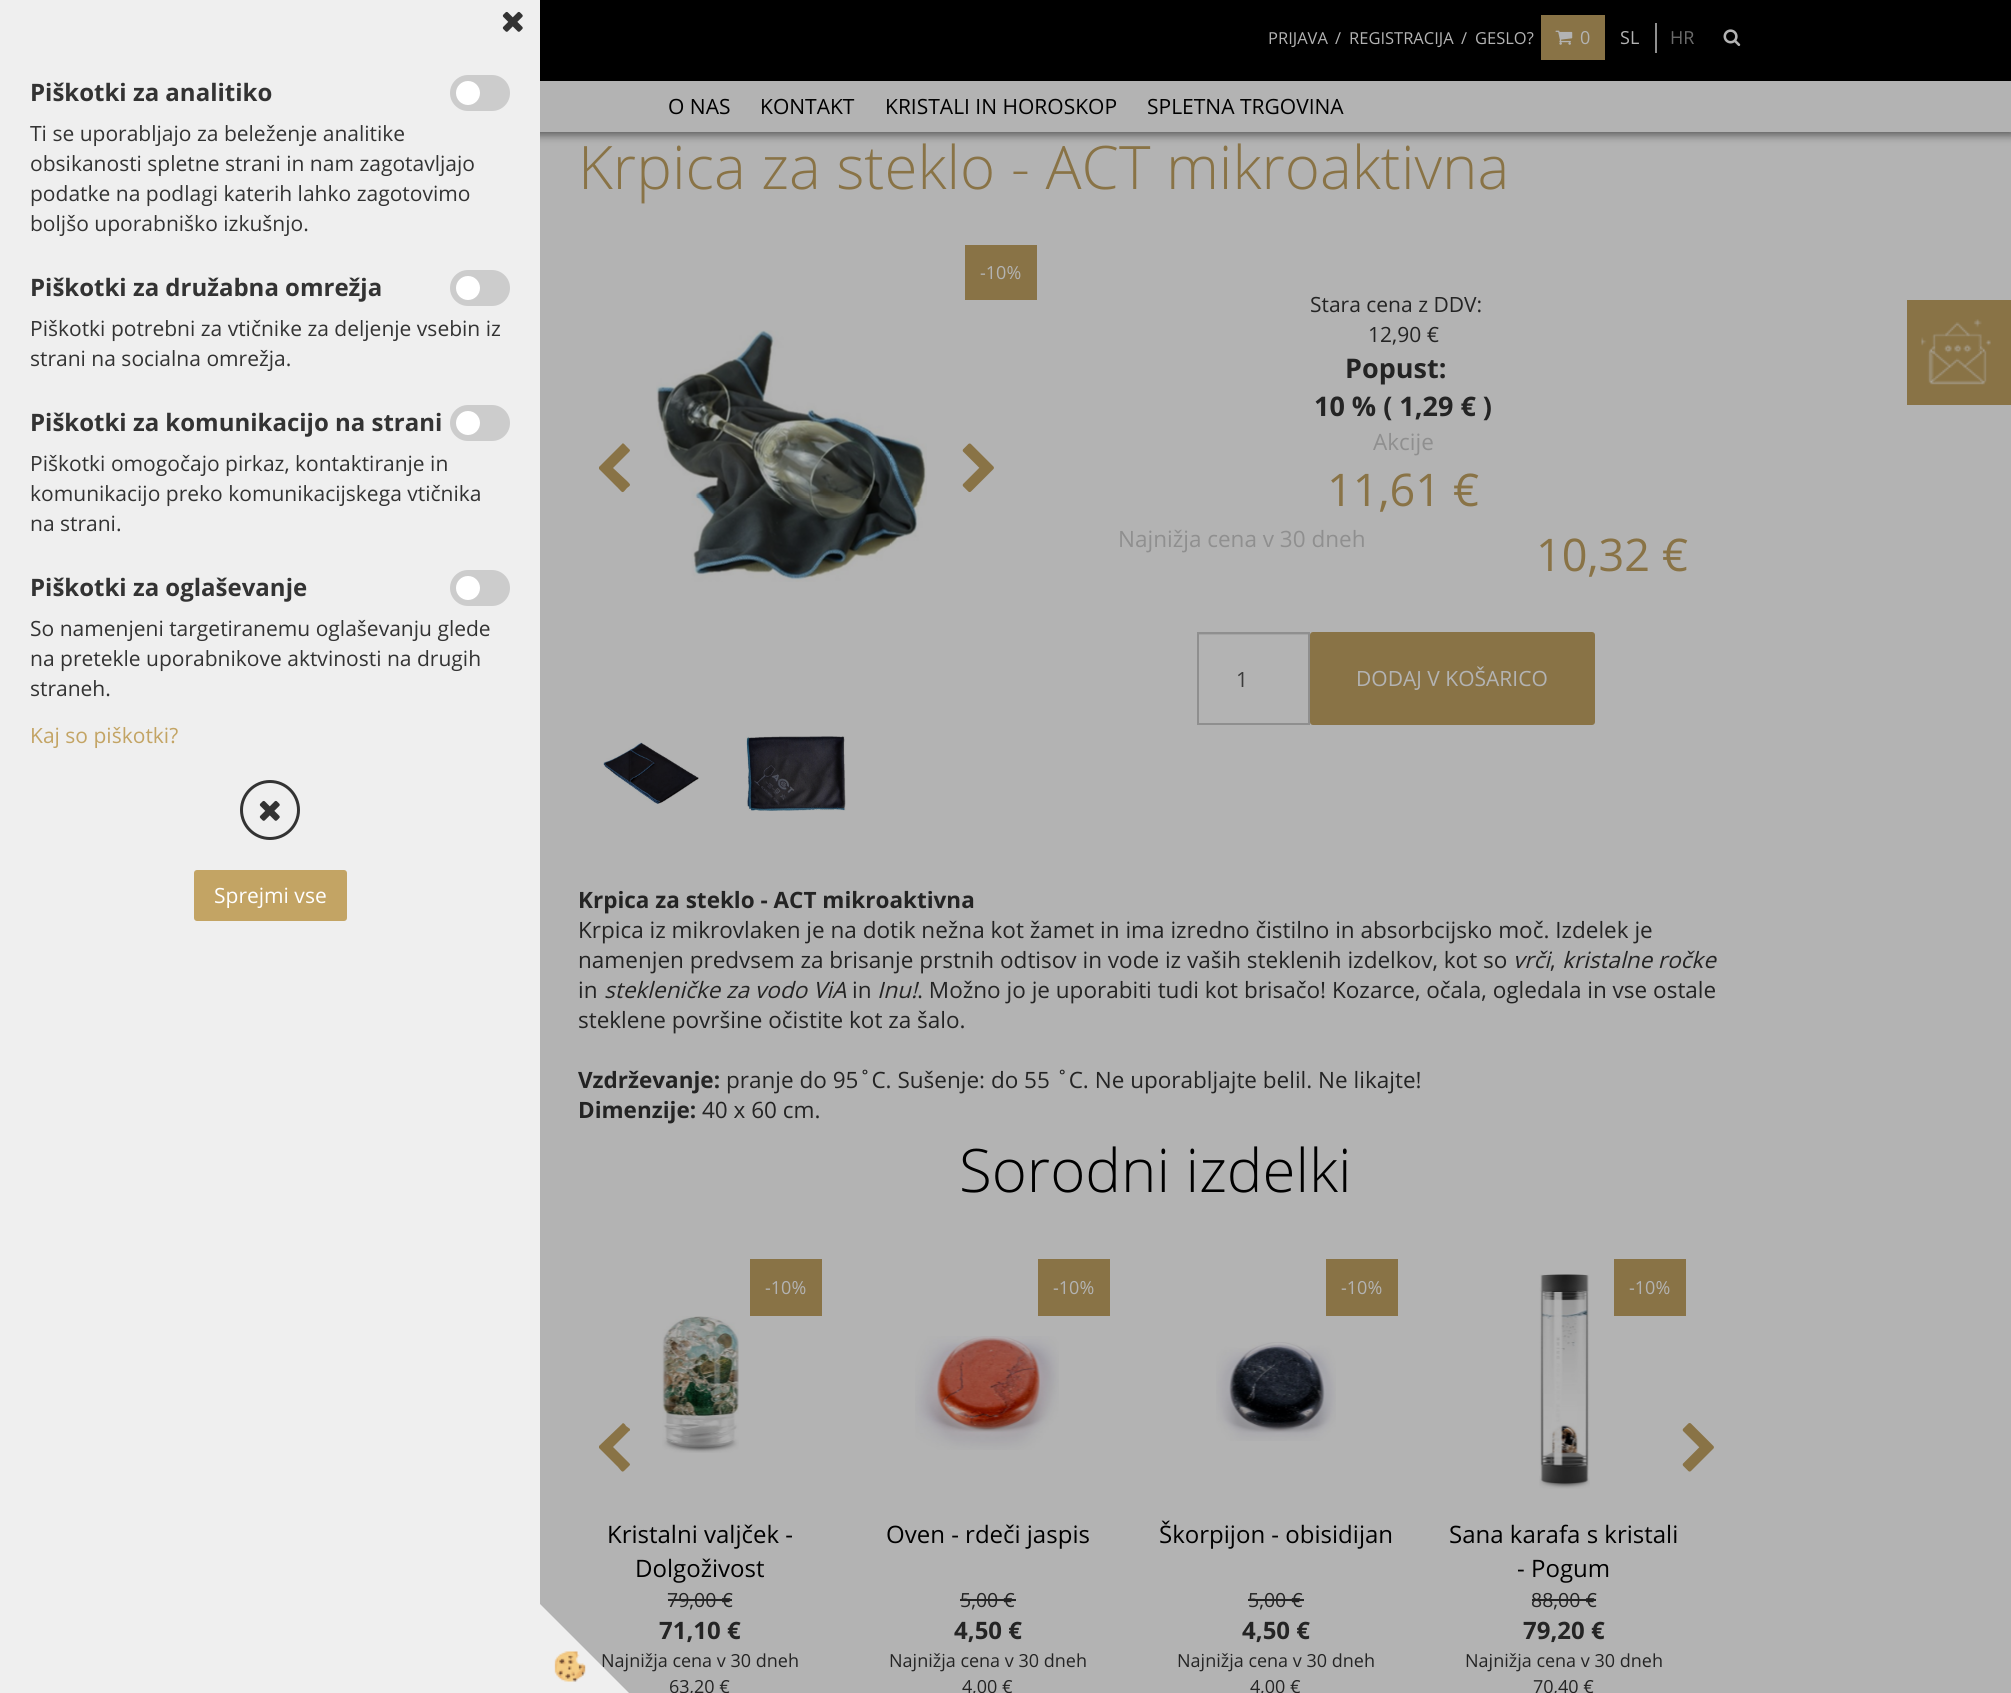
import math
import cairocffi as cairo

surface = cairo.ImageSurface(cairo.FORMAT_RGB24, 2011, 1693)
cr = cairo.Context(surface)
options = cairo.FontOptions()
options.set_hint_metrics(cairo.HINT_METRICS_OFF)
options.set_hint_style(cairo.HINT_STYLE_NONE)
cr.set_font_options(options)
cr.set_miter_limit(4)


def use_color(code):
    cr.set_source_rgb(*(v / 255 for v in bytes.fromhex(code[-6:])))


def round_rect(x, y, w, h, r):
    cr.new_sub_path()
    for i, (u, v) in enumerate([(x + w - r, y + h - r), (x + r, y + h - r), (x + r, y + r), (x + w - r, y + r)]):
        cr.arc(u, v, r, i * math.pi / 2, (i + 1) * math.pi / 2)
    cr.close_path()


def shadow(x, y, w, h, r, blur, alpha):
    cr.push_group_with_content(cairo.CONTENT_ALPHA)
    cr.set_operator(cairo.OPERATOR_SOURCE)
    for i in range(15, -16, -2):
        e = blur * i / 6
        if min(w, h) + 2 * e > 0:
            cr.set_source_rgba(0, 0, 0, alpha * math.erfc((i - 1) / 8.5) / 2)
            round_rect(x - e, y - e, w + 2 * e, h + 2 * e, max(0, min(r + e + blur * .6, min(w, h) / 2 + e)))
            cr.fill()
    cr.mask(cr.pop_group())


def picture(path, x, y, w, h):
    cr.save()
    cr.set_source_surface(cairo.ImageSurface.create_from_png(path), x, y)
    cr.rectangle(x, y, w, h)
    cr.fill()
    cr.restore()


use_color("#b3b3b3")
cr.paint()
use_color("#000000")
shadow(0, 3, 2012, 132, 0, 4.5, 0.5)
use_color("#efefef")
cr.rectangle(0, 0, 540, 1693)
cr.fill()
picture("img1.png", 502, 11, 21, 21)
cr.select_font_face("Open Sans", cairo.FONT_SLANT_NORMAL, cairo.FONT_WEIGHT_BOLD)
cr.set_font_size(24)
use_color("#333333")
cr.move_to(30, 101)
cr.show_text("Piškotki za analitiko")
use_color("#cccccc")
round_rect(450, 75, 60, 36, 18)
cr.fill()
use_color("#ffffff")
cr.arc(468, 93, 12, 0, 2 * math.pi)
cr.fill()
cr.select_font_face("Open Sans")
cr.set_font_size(21)
use_color("#333333")
cr.move_to(30, 141)
cr.show_text("Ti se uporabljajo za beleženje analitike")
cr.move_to(30, 171)
cr.show_text("obsikanosti spletne strani in nam zagotavljajo")
cr.move_to(30, 201)
cr.show_text("podatke na podlagi katerih lahko zagotovimo")
cr.move_to(30, 231)
cr.show_text("boljšo uporabniško izkušnjo.")
cr.select_font_face("Open Sans", cairo.FONT_SLANT_NORMAL, cairo.FONT_WEIGHT_BOLD)
cr.set_font_size(24)
cr.move_to(30, 296)
cr.show_text("Piškotki za družabna omrežja")
use_color("#cccccc")
round_rect(450, 270, 60, 36, 18)
cr.fill()
use_color("#ffffff")
cr.arc(468, 288, 12, 0, 2 * math.pi)
cr.fill()
cr.select_font_face("Open Sans")
cr.set_font_size(21)
use_color("#333333")
cr.move_to(30, 336)
cr.show_text("Piškotki potrebni za vtičnike za deljenje vsebin iz")
cr.move_to(30, 366)
cr.show_text("strani na socialna omrežja.")
cr.select_font_face("Open Sans", cairo.FONT_SLANT_NORMAL, cairo.FONT_WEIGHT_BOLD)
cr.set_font_size(24)
cr.move_to(30, 431)
cr.show_text("Piškotki za komunikacijo na strani")
use_color("#cccccc")
round_rect(450, 405, 60, 36, 18)
cr.fill()
use_color("#ffffff")
cr.arc(468, 423, 12, 0, 2 * math.pi)
cr.fill()
cr.select_font_face("Open Sans")
cr.set_font_size(21)
use_color("#333333")
cr.move_to(30, 471)
cr.show_text("Piškotki omogočajo pirkaz, kontaktiranje in")
cr.move_to(30, 501)
cr.show_text("komunikacijo preko komunikacijskega vtičnika")
cr.move_to(30, 531)
cr.show_text("na strani.")
cr.select_font_face("Open Sans", cairo.FONT_SLANT_NORMAL, cairo.FONT_WEIGHT_BOLD)
cr.set_font_size(24)
cr.move_to(30, 596)
cr.show_text("Piškotki za oglaševanje")
use_color("#cccccc")
round_rect(450, 570, 60, 36, 18)
cr.fill()
use_color("#ffffff")
cr.arc(468, 588, 12, 0, 2 * math.pi)
cr.fill()
cr.select_font_face("Open Sans")
cr.set_font_size(21)
use_color("#333333")
cr.move_to(30, 636)
cr.show_text("So namenjeni targetiranemu oglaševanju glede")
cr.move_to(30, 666)
cr.show_text("na pretekle uporabnikove aktvinosti na drugih")
cr.move_to(30, 696)
cr.show_text("straneh.")
use_color("#c3a464")
cr.move_to(30, 743)
cr.show_text("Kaj so piškotki?")
cr.new_path()
cr.arc(270, 810, 28.5, 0, 2 * math.pi)
use_color("#333333")
cr.set_line_width(3)
cr.stroke()
picture("img1.png", 259, 800, 21, 21)
use_color("#c3a464")
round_rect(195, 871, 151, 49, 2)
cr.fill_preserve()
cr.set_line_width(2)
cr.stroke()
use_color("#ffffff")
cr.move_to(214, 903)
cr.show_text("Sprejmi vse")
cr.set_font_size(18)
use_color("#242424")
cr.move_to(601, 1667)
cr.show_text("Najnižja cena v 30 dneh")
use_color("#efefef")
cr.new_path()
cr.move_to(630, 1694)
cr.line_to(540, 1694)
cr.line_to(540, 1604)
cr.close_path()
cr.fill()
picture("img2.png", 554, 1651, 32, 31)
use_color("#b3b3b3")
cr.rectangle(540, 81, 1471, 51)
cr.fill()
use_color("#000000")
cr.rectangle(540, 0, 1471, 81)
cr.fill()
cr.set_font_size(16.5)
use_color("#b3b3b3")
cr.move_to(1268, 44)
cr.show_text("PRIJAVA")
cr.move_to(1335, 44)
cr.show_text("/")
cr.move_to(1349, 44)
cr.show_text("REGISTRACIJA")
cr.move_to(1461, 44)
cr.show_text("/")
cr.move_to(1475, 44)
cr.show_text("GESLO?")
use_color("#897346")
cr.rectangle(1541, 15, 64, 45)
cr.fill()
picture("img3.png", 1555, 30, 18, 15)
cr.set_font_size(18)
use_color("#b3b3b3")
cr.move_to(1580, 44)
cr.show_text("0")
cr.move_to(1620, 44)
cr.show_text("SL")
use_color("#8f8f8f")
cr.rectangle(1655, 23, 2, 30)
cr.fill()
use_color("#6b6b6b")
cr.move_to(1670, 44)
cr.show_text("HR")
picture("img4.png", 1723, 29, 18, 17)
cr.set_font_size(21)
use_color("#000000")
cr.move_to(668, 114)
cr.show_text("O NAS")
cr.move_to(760, 114)
cr.show_text("KONTAKT")
cr.move_to(885, 114)
cr.show_text("KRISTALI IN HOROSKOP")
cr.move_to(1147, 114)
cr.show_text("SPLETNA TRGOVINA")
cr.select_font_face("Open Sans Light")
cr.set_font_size(60)
use_color("#897346")
cr.move_to(578, 189)
cr.show_text("Krpica za steklo - ACT mikroaktivna")
cr.rectangle(965, 245, 72, 55)
cr.fill()
cr.select_font_face("Open Sans")
cr.set_font_size(18)
use_color("#b3b3b3")
cr.move_to(980, 279)
cr.show_text("-10%")
use_color("#897346")
cr.new_path()
cr.move_to(629, 452)
cr.line_to(613, 468)
cr.line_to(627, 481)
cr.curve_to(631, 485, 631, 485, 627, 488)
cr.curve_to(622, 494, 623, 493, 618, 488)
cr.line_to(599, 469)
cr.line_to(599, 467)
cr.line_to(622, 444)
cr.curve_to(623, 442, 625, 445, 626, 446)
cr.line_to(630, 450)
cr.curve_to(630, 450, 630, 451, 629, 452)
cr.close_path()
cr.fill()
picture("img5.png", 656, 330, 271, 252)
picture("img6.png", 962, 443, 32, 50)
picture("img7.png", 603, 742, 96, 62)
picture("img8.png", 746, 736, 100, 75)
cr.set_font_size(21)
use_color("#242424")
cr.move_to(1310, 312)
cr.show_text("Stara cena z DDV:")
cr.move_to(1368, 342)
cr.show_text("12,90 €")
cr.select_font_face("Open Sans", cairo.FONT_SLANT_NORMAL, cairo.FONT_WEIGHT_BOLD)
cr.set_font_size(27)
cr.move_to(1345, 378)
cr.show_text("Popust:")
cr.move_to(1314, 416)
cr.show_text("10 % ( 1,29 € )")
cr.select_font_face("Open Sans")
cr.set_font_size(22.5)
use_color("#8f8f8f")
cr.move_to(1373, 450)
cr.show_text("Akcije")
cr.set_font_size(45)
use_color("#897346")
cr.move_to(1327, 506)
cr.show_text("11,61 €")
cr.set_font_size(22.5)
use_color("#8f8f8f")
cr.move_to(1118, 547)
cr.show_text("Najnižja cena v 30 dneh")
cr.set_font_size(45)
use_color("#897346")
cr.move_to(1536, 571)
cr.show_text("10,32 €")
use_color("#a5a5a5")
cr.rectangle(1199, 634, 109, 1)
cr.fill()
cr.rectangle(1198, 633, 111, 91)
use_color("#8f8f8f")
cr.stroke()
cr.set_font_size(21)
use_color("#3b3b3b")
cr.move_to(1236, 687)
cr.show_text("1")
use_color("#897346")
round_rect(1311, 633, 283, 91, 2)
cr.fill_preserve()
cr.stroke()
use_color("#b3b3b3")
cr.move_to(1356, 686)
cr.show_text("DODAJ V KOŠARICO")
cr.select_font_face("Open Sans", cairo.FONT_SLANT_NORMAL, cairo.FONT_WEIGHT_BOLD)
cr.set_font_size(22.5)
use_color("#242424")
cr.move_to(578, 908)
cr.show_text("Krpica za steklo - ACT mikroaktivna")
cr.select_font_face("Open Sans")
cr.move_to(578, 938)
cr.show_text("Krpica iz mikrovlaken je na dotik nežna kot žamet in ima izredno čistilno in absorbcijsko moč. Izdelek je")
cr.move_to(578, 968)
cr.show_text("namenjen predvsem za brisanje prstnih odtisov in vode iz vaših steklenih izdelkov, kot so")
cr.select_font_face("Open Sans", cairo.FONT_SLANT_ITALIC)
cr.move_to(1513, 968)
cr.show_text("vrči")
cr.move_to(1562, 968)
cr.show_text("kristalne ročke")
cr.select_font_face("Open Sans")
cr.move_to(1550, 968)
cr.show_text(",")
cr.move_to(578, 998)
cr.show_text("in")
cr.select_font_face("Open Sans", cairo.FONT_SLANT_ITALIC)
cr.move_to(604, 998)
cr.show_text("stekleničke za vodo ViA")
cr.select_font_face("Open Sans")
cr.move_to(852, 998)
cr.show_text("in")
cr.select_font_face("Open Sans", cairo.FONT_SLANT_ITALIC)
cr.move_to(877, 998)
cr.show_text("Inu!")
cr.select_font_face("Open Sans")
cr.move_to(917, 998)
cr.show_text(". Možno jo je uporabiti tudi kot brisačo! Kozarce, očala, ogledala in vse ostale")
cr.move_to(578, 1028)
cr.show_text("steklene površine očistite kot za šalo.")
cr.select_font_face("Open Sans", cairo.FONT_SLANT_NORMAL, cairo.FONT_WEIGHT_BOLD)
cr.move_to(578, 1088)
cr.show_text("Vzdrževanje:")
cr.select_font_face("Open Sans")
cr.move_to(726, 1088)
cr.show_text("pranje do 95˚C. Sušenje: do 55 ˚C. Ne uporabljajte belil. Ne likajte!")
cr.select_font_face("Open Sans", cairo.FONT_SLANT_NORMAL, cairo.FONT_WEIGHT_BOLD)
cr.move_to(578, 1118)
cr.show_text("Dimenzije:")
cr.select_font_face("Open Sans")
cr.move_to(702, 1118)
cr.show_text("40 x 60 cm.")
cr.select_font_face("Open Sans Light")
cr.set_font_size(60)
use_color("#000000")
cr.move_to(959, 1192)
cr.show_text("Sorodni izdelki")
use_color("#897346")
cr.rectangle(750, 1259, 72, 57)
cr.fill()
cr.select_font_face("Open Sans")
cr.set_font_size(18)
use_color("#b3b3b3")
cr.move_to(765, 1294)
cr.show_text("-10%")
picture("img9.png", 662, 1316, 77, 137)
cr.set_font_size(24)
use_color("#000000")
cr.move_to(607, 1543)
cr.show_text("Kristalni valjček -")
cr.move_to(635, 1577)
cr.show_text("Dolgoživost")
cr.set_font_size(19.5)
use_color("#242424")
cr.move_to(667, 1607)
cr.show_text("79,00 €")
cr.rectangle(668, 1599, 64, 2)
cr.fill()
cr.select_font_face("Open Sans", cairo.FONT_SLANT_NORMAL, cairo.FONT_WEIGHT_BOLD)
cr.set_font_size(24)
cr.move_to(659, 1639)
cr.show_text("71,10 €")
cr.select_font_face("Open Sans")
cr.set_font_size(18)
cr.move_to(669, 1693)
cr.show_text("63,20 €")
use_color("#897346")
cr.rectangle(1038, 1259, 72, 57)
cr.fill()
use_color("#b3b3b3")
cr.move_to(1053, 1294)
cr.show_text("-10%")
picture("img10.png", 915, 1336, 144, 114)
cr.set_font_size(24)
use_color("#000000")
cr.move_to(886, 1543)
cr.show_text("Oven - rdeči jaspis")
cr.set_font_size(19.5)
use_color("#242424")
cr.move_to(960, 1607)
cr.show_text("5,00 €")
cr.rectangle(960, 1599, 56, 2)
cr.fill()
cr.select_font_face("Open Sans", cairo.FONT_SLANT_NORMAL, cairo.FONT_WEIGHT_BOLD)
cr.set_font_size(24)
cr.move_to(954, 1639)
cr.show_text("4,50 €")
cr.select_font_face("Open Sans")
cr.set_font_size(18)
cr.move_to(889, 1667)
cr.show_text("Najnižja cena v 30 dneh")
cr.move_to(962, 1693)
cr.show_text("4,00 €")
use_color("#897346")
cr.rectangle(1326, 1259, 72, 57)
cr.fill()
use_color("#b3b3b3")
cr.move_to(1341, 1294)
cr.show_text("-10%")
picture("img11.png", 1216, 1342, 120, 99)
cr.set_font_size(24)
use_color("#000000")
cr.move_to(1159, 1543)
cr.show_text("Škorpijon - obisidijan")
cr.set_font_size(19.5)
use_color("#242424")
cr.move_to(1248, 1607)
cr.show_text("5,00 €")
cr.rectangle(1248, 1599, 56, 2)
cr.fill()
cr.select_font_face("Open Sans", cairo.FONT_SLANT_NORMAL, cairo.FONT_WEIGHT_BOLD)
cr.set_font_size(24)
cr.move_to(1242, 1639)
cr.show_text("4,50 €")
cr.select_font_face("Open Sans")
cr.set_font_size(18)
cr.move_to(1177, 1667)
cr.show_text("Najnižja cena v 30 dneh")
cr.move_to(1250, 1693)
cr.show_text("4,00 €")
picture("img12.png", 1539, 1274, 51, 215)
use_color("#897346")
cr.rectangle(1614, 1259, 72, 57)
cr.fill()
use_color("#b3b3b3")
cr.move_to(1629, 1294)
cr.show_text("-10%")
cr.set_font_size(24)
use_color("#000000")
cr.move_to(1449, 1543)
cr.show_text("Sana karafa s kristali")
cr.move_to(1517, 1577)
cr.show_text("- Pogum")
cr.set_font_size(19.5)
use_color("#242424")
cr.move_to(1531, 1607)
cr.show_text("88,00 €")
cr.rectangle(1532, 1599, 64, 2)
cr.fill()
cr.select_font_face("Open Sans", cairo.FONT_SLANT_NORMAL, cairo.FONT_WEIGHT_BOLD)
cr.set_font_size(24)
cr.move_to(1523, 1639)
cr.show_text("79,20 €")
cr.select_font_face("Open Sans")
cr.set_font_size(18)
cr.move_to(1465, 1667)
cr.show_text("Najnižja cena v 30 dneh")
cr.move_to(1533, 1693)
cr.show_text("70,40 €")
use_color("#897346")
cr.new_path()
cr.move_to(629, 1431)
cr.line_to(613, 1447)
cr.line_to(627, 1461)
cr.curve_to(631, 1465, 631, 1464, 627, 1468)
cr.curve_to(622, 1473, 623, 1473, 618, 1467)
cr.line_to(599, 1448)
cr.line_to(599, 1446)
cr.line_to(622, 1424)
cr.curve_to(623, 1422, 625, 1424, 626, 1426)
cr.line_to(630, 1429)
cr.curve_to(630, 1430, 630, 1431, 629, 1431)
cr.close_path()
cr.fill()
picture("img13.png", 1682, 1423, 32, 49)
cr.rectangle(1907, 300, 104, 105)
cr.fill()
picture("img14.png", 1921, 319, 70, 66)
surface.write_to_png("result.png")
